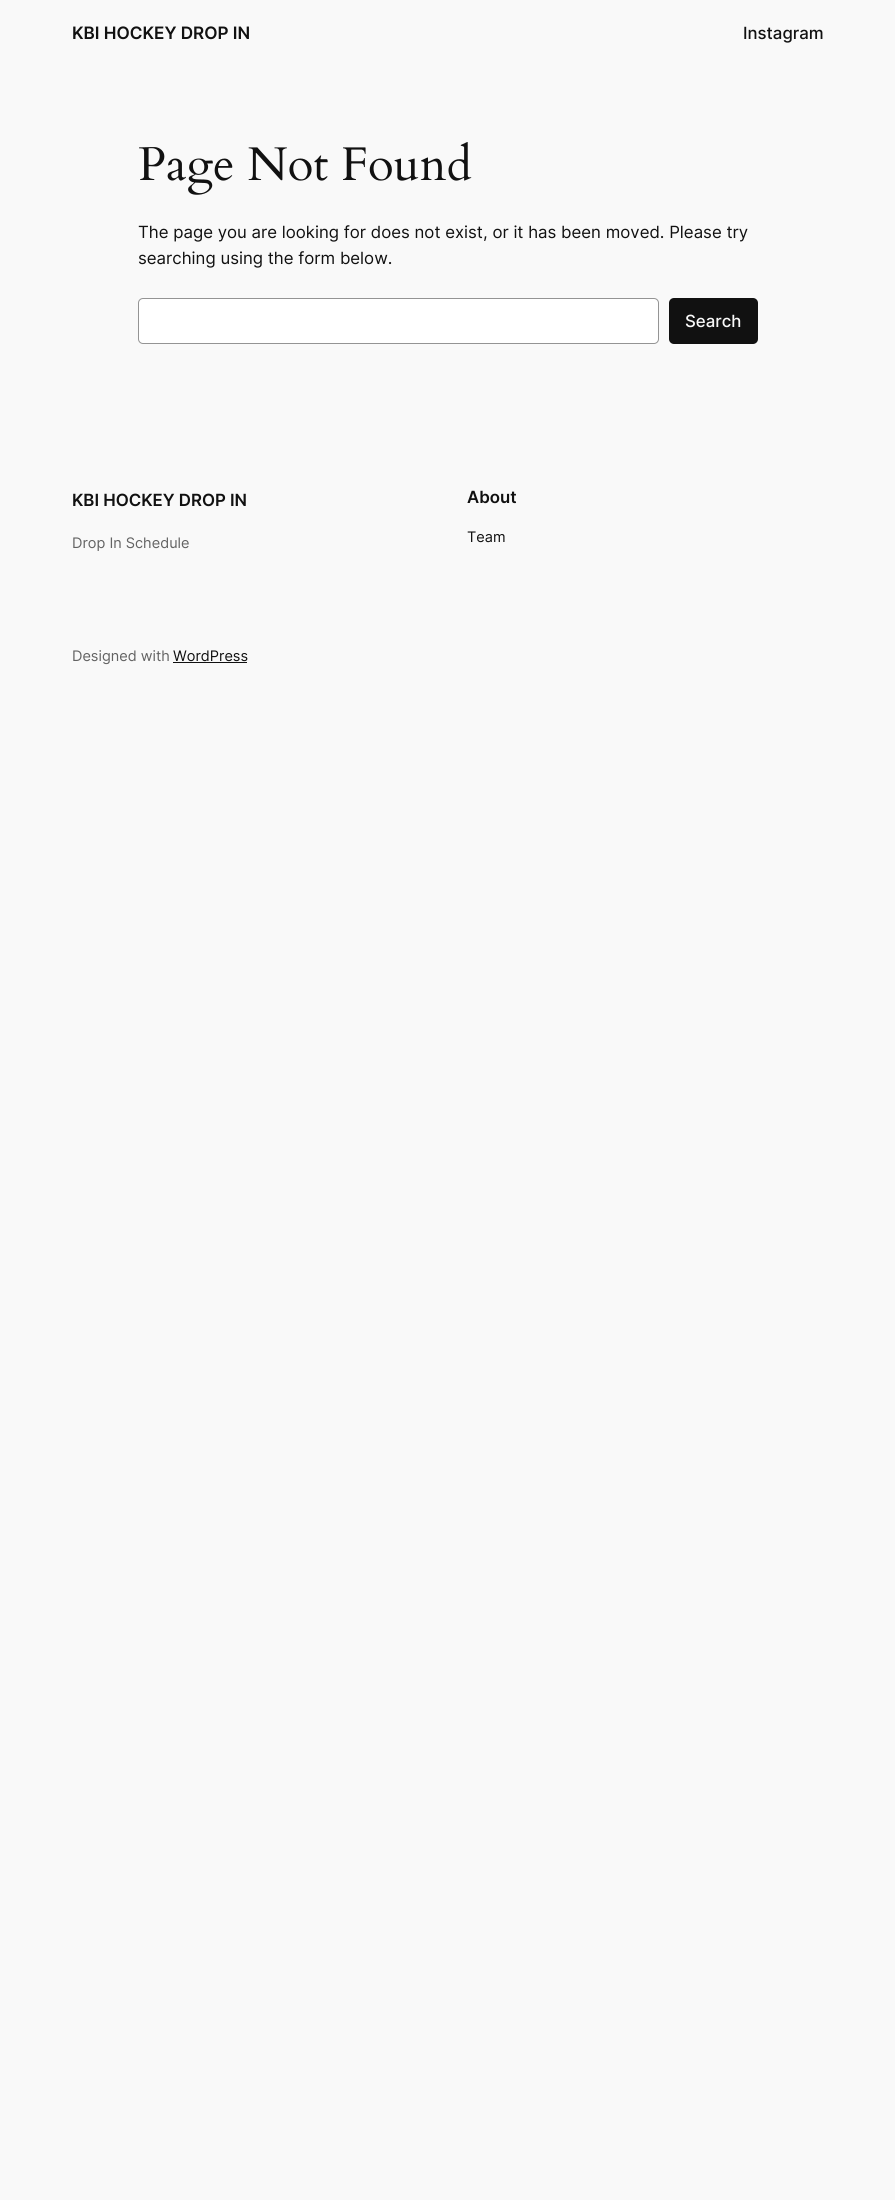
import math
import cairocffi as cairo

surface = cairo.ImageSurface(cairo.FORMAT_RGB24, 895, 2200)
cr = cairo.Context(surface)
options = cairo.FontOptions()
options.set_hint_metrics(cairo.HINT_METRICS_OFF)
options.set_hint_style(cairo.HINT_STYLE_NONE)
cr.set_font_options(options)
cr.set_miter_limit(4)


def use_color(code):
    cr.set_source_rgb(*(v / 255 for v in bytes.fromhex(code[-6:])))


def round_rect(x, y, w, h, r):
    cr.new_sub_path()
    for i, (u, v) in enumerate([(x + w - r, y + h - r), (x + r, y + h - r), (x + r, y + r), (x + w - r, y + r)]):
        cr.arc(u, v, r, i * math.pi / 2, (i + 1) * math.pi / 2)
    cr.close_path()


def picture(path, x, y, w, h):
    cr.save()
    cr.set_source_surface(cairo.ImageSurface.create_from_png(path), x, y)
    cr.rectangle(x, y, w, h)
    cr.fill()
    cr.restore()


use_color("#f9f9f9")
cr.paint()
cr.select_font_face("Inter SemiBold")
cr.set_font_size(17.1)
use_color("#111111")
cr.move_to(72, 39)
cr.show_text("KBI HOCKEY DROP IN")
cr.select_font_face("Inter Medium")
cr.set_font_size(16.8)
cr.move_to(743, 39)
cr.show_text("Instagram")
picture("img1.png", 139, 142, 333, 53)
cr.select_font_face("Inter")
cr.move_to(138, 238)
cr.show_text("The page you are looking for does not exist, or it has been moved. Please try")
cr.move_to(138, 264)
cr.show_text("searching using the form below.")
use_color("#ffffff")
round_rect(138.5, 298.5, 520, 45, 4.5)
cr.fill_preserve()
use_color("#949494")
cr.set_line_width(1)
cr.stroke()
use_color("#111111")
round_rect(669, 298, 89, 46, 5)
cr.fill()
cr.select_font_face("Inter Medium")
use_color("#f9f9f9")
cr.move_to(685, 327)
cr.show_text("Search")
cr.select_font_face("Inter SemiBold")
use_color("#111111")
cr.move_to(72, 506)
cr.show_text("KBI HOCKEY DROP IN")
cr.select_font_face("Inter")
cr.set_font_size(14.5)
use_color("#636363")
cr.move_to(72, 548)
cr.show_text("Drop In Schedule")
cr.select_font_face("Inter SemiBold")
cr.set_font_size(16.8)
use_color("#111111")
cr.move_to(467, 503)
cr.show_text("About")
cr.select_font_face("Inter")
cr.set_font_size(14.5)
cr.move_to(467, 542)
cr.show_text("Team")
use_color("#636363")
cr.move_to(72, 661)
cr.show_text("Designed with")
use_color("#111111")
cr.move_to(173, 661)
cr.show_text("WordPress")
cr.rectangle(173, 662, 74, 1)
cr.fill()
surface.write_to_png("result.png")
